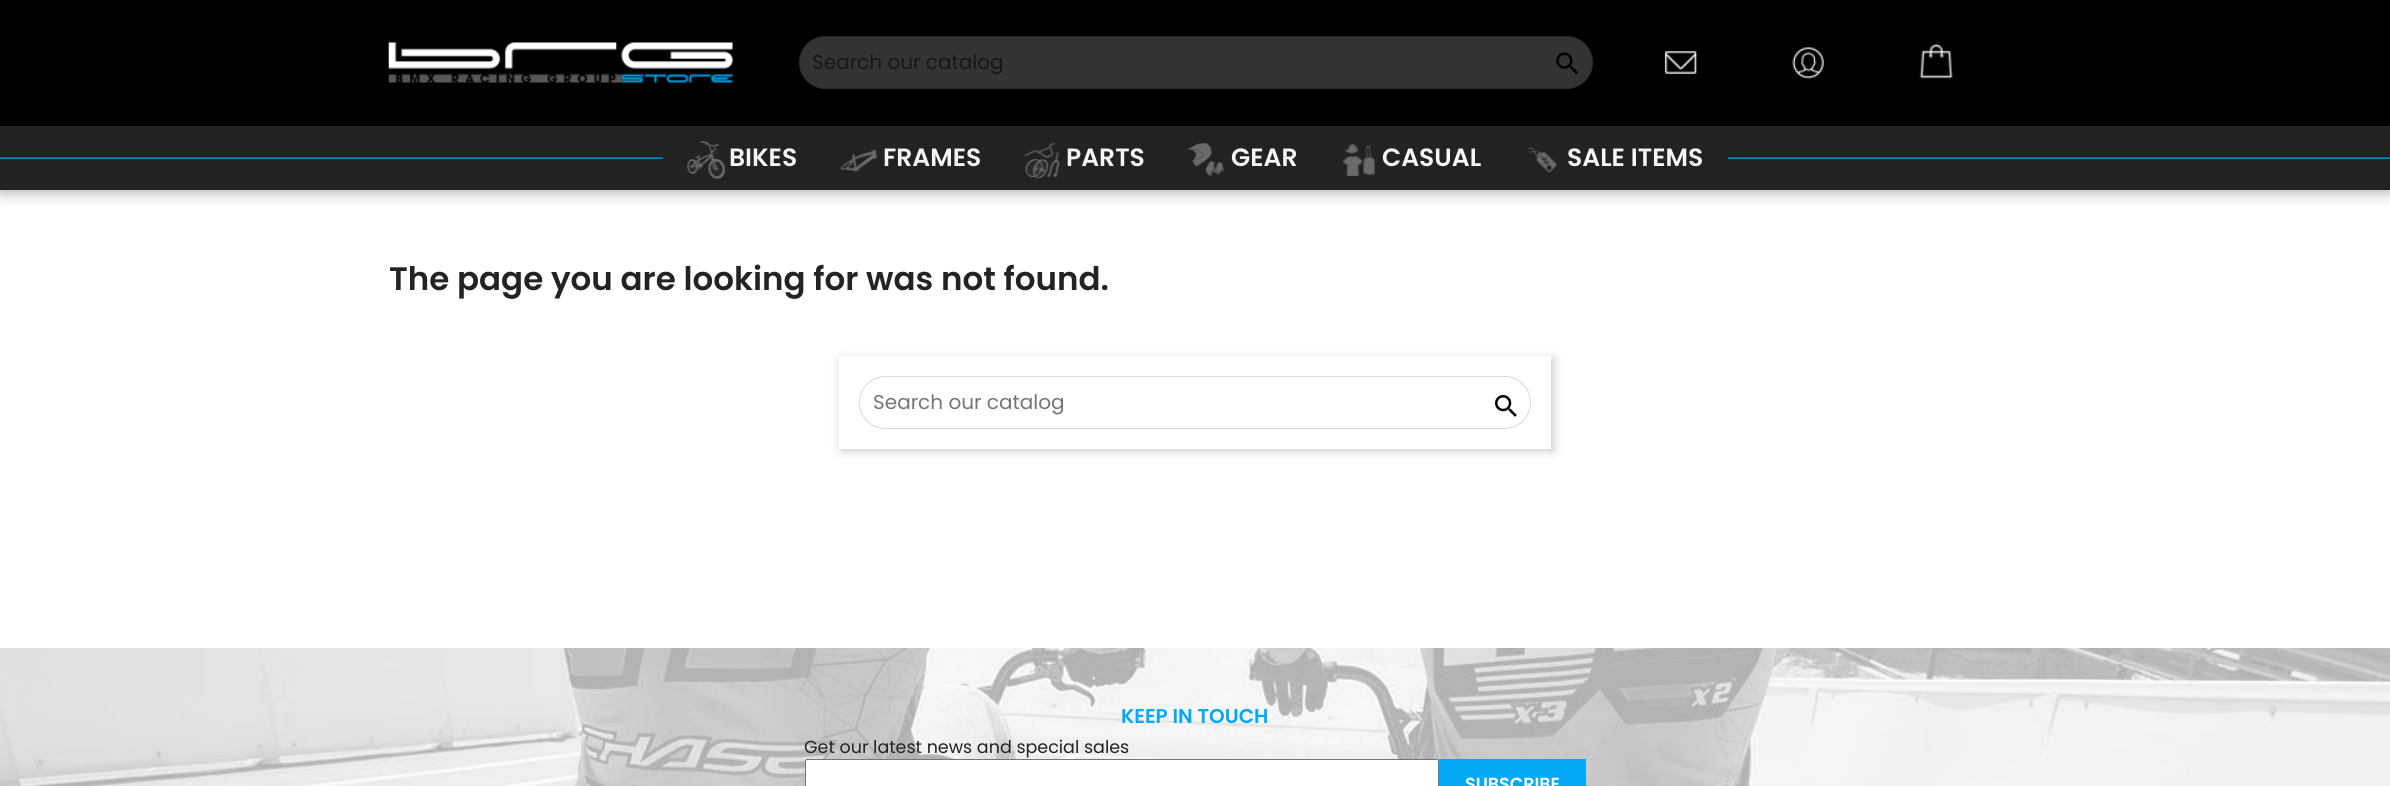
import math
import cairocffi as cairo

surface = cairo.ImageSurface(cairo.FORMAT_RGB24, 2390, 786)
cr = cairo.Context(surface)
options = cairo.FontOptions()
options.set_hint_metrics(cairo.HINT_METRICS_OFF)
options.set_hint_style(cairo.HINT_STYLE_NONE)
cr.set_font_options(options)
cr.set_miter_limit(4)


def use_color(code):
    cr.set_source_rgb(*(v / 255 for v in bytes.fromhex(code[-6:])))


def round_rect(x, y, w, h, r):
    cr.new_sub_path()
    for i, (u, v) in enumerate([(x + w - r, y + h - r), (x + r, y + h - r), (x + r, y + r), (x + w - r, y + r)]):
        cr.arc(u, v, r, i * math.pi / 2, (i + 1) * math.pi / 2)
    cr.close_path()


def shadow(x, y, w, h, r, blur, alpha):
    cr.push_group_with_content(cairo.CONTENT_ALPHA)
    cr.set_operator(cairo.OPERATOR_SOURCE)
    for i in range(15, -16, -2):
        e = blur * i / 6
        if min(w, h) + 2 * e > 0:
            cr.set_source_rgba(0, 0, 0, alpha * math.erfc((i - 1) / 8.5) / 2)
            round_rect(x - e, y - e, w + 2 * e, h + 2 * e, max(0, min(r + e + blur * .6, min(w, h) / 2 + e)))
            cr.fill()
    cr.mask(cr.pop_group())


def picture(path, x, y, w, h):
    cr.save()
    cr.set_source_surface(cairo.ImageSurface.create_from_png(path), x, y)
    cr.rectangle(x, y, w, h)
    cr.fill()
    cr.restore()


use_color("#ffffff")
cr.paint()
use_color("#000000")
shadow(0, 3, 2390, 190, 0, 7, 0.3)
use_color("#000000")
cr.rectangle(0, 0, 2390, 126)
cr.fill()
picture("img1.png", 388, 42, 345, 41)
use_color("#333333")
round_rect(799, 36, 794, 53, 26.5)
cr.fill()
round_rect(799.5, 36.5, 793, 52, 26)
cr.set_source_rgba(0, 0, 0, 0.15)
cr.set_line_width(1)
cr.stroke()
cr.select_font_face("Poppins")
cr.set_font_size(20)
use_color("#171717")
cr.move_to(812, 69)
cr.show_text("Search our catalog")
picture("img2.png", 1556, 52, 22, 23)
picture("img3.png", 1664, 51, 33, 23)
picture("img4.png", 1792, 47, 32, 32)
picture("img5.png", 1919, 43, 34, 36)
use_color("#222222")
cr.rectangle(0, 126, 2390, 64)
cr.fill()
picture("img6.png", 0, 157, 2390, 2)
cr.rectangle(663, 157, 1065, 2)
cr.fill()
picture("img7.png", 687, 141, 39, 38)
cr.select_font_face("Poppins SemiBold")
cr.set_font_size(25)
use_color("#f6f6f6")
cr.move_to(729, 166)
cr.show_text("BIKES")
picture("img8.png", 840, 149, 38, 23)
cr.move_to(883, 166)
cr.show_text("FRAMES")
picture("img9.png", 1024, 143, 36, 35)
cr.move_to(1066, 166)
cr.show_text("PARTS")
picture("img10.png", 1187, 143, 37, 33)
cr.move_to(1231, 166)
cr.show_text("GEAR")
picture("img11.png", 1342, 144, 34, 32)
cr.move_to(1382, 166)
cr.show_text("CASUAL")
picture("img12.png", 1528, 147, 30, 26)
cr.move_to(1567, 166)
cr.show_text("SALE ITEMS")
cr.set_font_size(32.5)
use_color("#232323")
cr.move_to(389, 290)
cr.show_text("The page you are looking for was not found.")
use_color("#000000")
shadow(841, 359, 713, 92, 0, 5, 0.2)
use_color("#ffffff")
cr.rectangle(839, 356, 712, 93)
cr.fill()
round_rect(859.5, 376.5, 671, 52, 26)
use_color("#d9d9d9")
cr.stroke()
cr.select_font_face("Poppins")
cr.set_font_size(20)
use_color("#757575")
cr.move_to(873, 409)
cr.show_text("Search our catalog")
picture("img13.png", 1495, 395, 22, 22)
picture("img14.png", 0, 648, 2390, 138)
cr.select_font_face("Poppins SemiBold")
use_color("#03a9f4")
cr.move_to(1121, 723)
cr.show_text("KEEP IN TOUCH")
cr.select_font_face("Poppins")
cr.set_font_size(17.5)
use_color("#232323")
cr.move_to(804, 753)
cr.show_text("Get our latest news and special sales")
use_color("#ffffff")
round_rect(805.5, 759.5, 633, 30, 2)
cr.fill_preserve()
use_color("#767676")
cr.stroke()
use_color("#03a9f4")
cr.rectangle(1439, 759, 147, 27)
cr.fill()
cr.select_font_face("Poppins SemiBold")
use_color("#ffffff")
cr.move_to(1465, 790)
cr.show_text("SUBSCRIBE")
surface.write_to_png("result.png")
